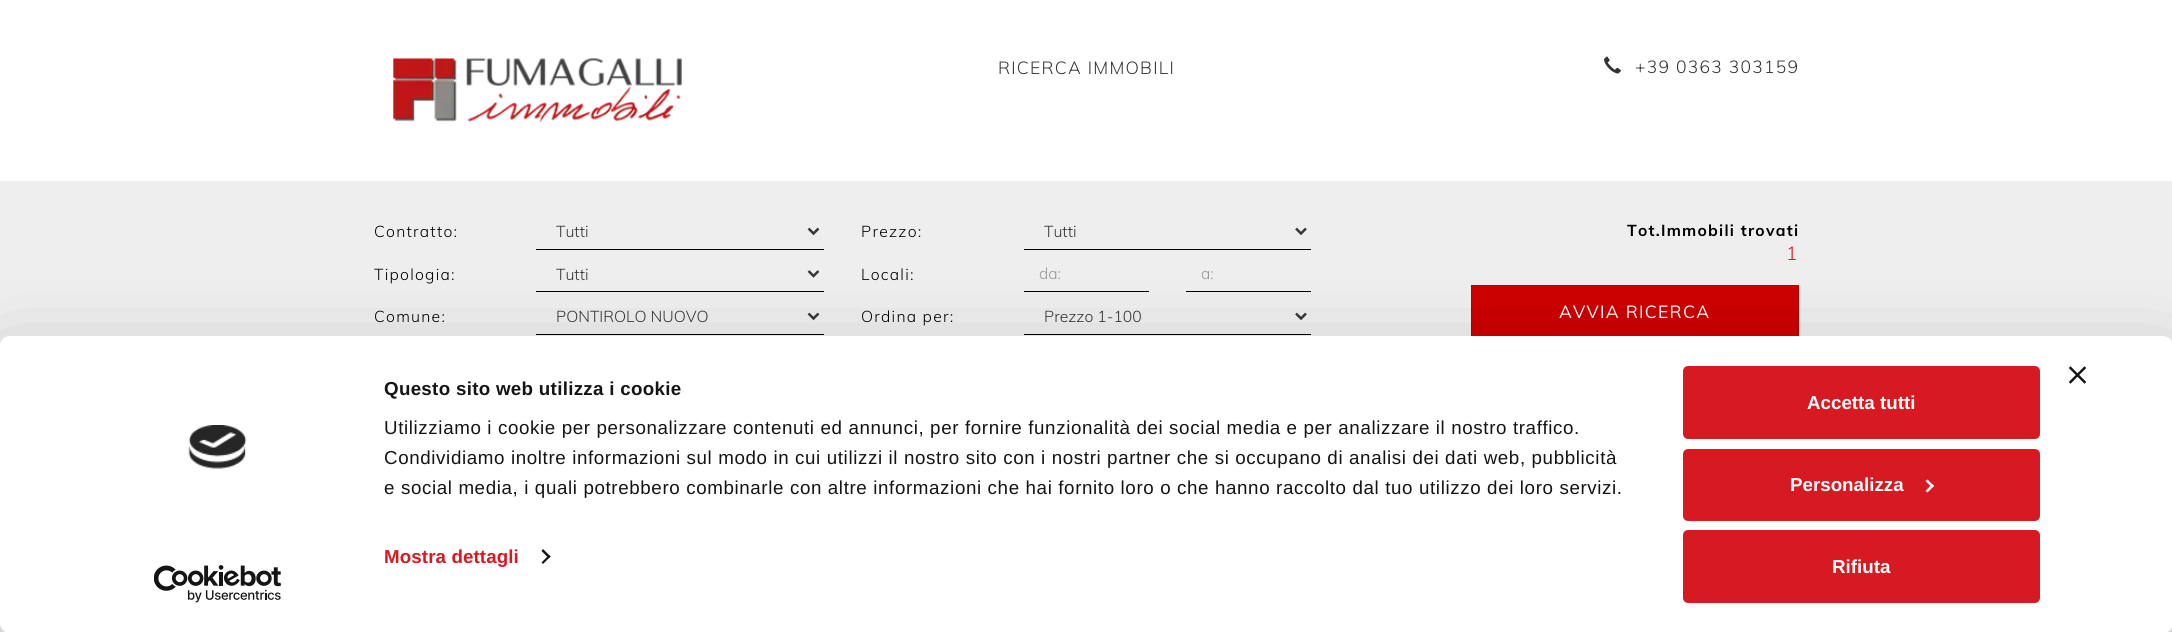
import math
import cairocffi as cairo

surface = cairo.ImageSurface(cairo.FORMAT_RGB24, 2172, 632)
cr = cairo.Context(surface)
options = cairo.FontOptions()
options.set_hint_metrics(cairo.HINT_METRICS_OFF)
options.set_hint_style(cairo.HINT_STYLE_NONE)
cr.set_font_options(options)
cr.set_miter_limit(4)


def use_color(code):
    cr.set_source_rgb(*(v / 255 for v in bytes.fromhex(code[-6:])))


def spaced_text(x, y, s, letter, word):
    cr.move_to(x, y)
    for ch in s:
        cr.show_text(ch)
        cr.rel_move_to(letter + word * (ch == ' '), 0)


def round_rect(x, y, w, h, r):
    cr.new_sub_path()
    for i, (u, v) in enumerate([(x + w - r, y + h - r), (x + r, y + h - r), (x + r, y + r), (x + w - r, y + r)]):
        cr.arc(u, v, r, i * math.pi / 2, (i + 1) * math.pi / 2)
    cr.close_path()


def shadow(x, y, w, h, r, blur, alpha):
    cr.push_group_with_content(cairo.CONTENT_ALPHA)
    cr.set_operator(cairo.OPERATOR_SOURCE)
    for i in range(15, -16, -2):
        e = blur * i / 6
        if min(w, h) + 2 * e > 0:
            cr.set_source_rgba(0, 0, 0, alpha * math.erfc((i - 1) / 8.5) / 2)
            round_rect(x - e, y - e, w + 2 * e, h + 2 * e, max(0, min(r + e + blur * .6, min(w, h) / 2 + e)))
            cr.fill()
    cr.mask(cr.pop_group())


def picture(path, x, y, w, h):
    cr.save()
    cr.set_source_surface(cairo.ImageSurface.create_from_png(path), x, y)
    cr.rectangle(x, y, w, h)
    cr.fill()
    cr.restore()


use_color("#ffffff")
cr.paint()
picture("img1.png", 393, 58, 289, 65)
cr.select_font_face("Muli Light")
cr.set_font_size(17.5)
use_color("#333333")
spaced_text(998, 74, "RICERCA IMMOBILI", 1.25, 0)
picture("img2.png", 1604, 56, 17, 18)
spaced_text(1635, 73, "+39 0363 303159", 1.25, 0)
use_color("#eeeeee")
cr.rectangle(0, 181, 2172, 165)
cr.fill()
cr.set_font_size(15.75)
use_color("#000000")
spaced_text(374, 237, "Contratto:", 1.25, 0)
cr.rectangle(536, 249, 288, 1)
cr.fill()
cr.new_path()
cr.move_to(808.5, 228.5)
cr.line_to(813.5, 233.5)
cr.line_to(818.5, 228.5)
use_color("#373737")
cr.set_line_width(2.5)
cr.stroke()
use_color("#333333")
cr.move_to(556, 237)
cr.show_text("Tutti")
use_color("#000000")
spaced_text(374, 280, "Tipologia:", 1.25, 0)
cr.rectangle(536, 291, 288, 1)
cr.fill()
cr.new_path()
cr.move_to(808.5, 271)
cr.line_to(813.5, 276)
cr.line_to(818.5, 271)
use_color("#373737")
cr.stroke()
use_color("#333333")
cr.move_to(556, 280)
cr.show_text("Tutti")
use_color("#000000")
spaced_text(374, 322, "Comune:", 1.25, 0)
cr.rectangle(536, 334, 288, 1)
cr.fill()
cr.new_path()
cr.move_to(808.5, 313.5)
cr.line_to(813.5, 318.5)
cr.line_to(818.5, 313.5)
use_color("#373737")
cr.stroke()
use_color("#333333")
cr.move_to(556, 322)
cr.show_text("PONTIROLO NUOVO")
use_color("#000000")
spaced_text(861, 237, "Prezzo:", 1.25, 0)
cr.rectangle(1024, 249, 287, 1)
cr.fill()
cr.new_path()
cr.move_to(1296, 228.5)
cr.line_to(1301, 233.5)
cr.line_to(1306, 228.5)
use_color("#373737")
cr.stroke()
use_color("#333333")
cr.move_to(1044, 237)
cr.show_text("Tutti")
use_color("#000000")
spaced_text(861, 280, "Locali:", 1.25, 0)
cr.rectangle(1024, 291, 125, 1)
cr.fill()
use_color("#999999")
cr.move_to(1039, 279)
cr.show_text("da:")
use_color("#000000")
cr.rectangle(1186, 291, 125, 1)
cr.fill()
use_color("#999999")
cr.move_to(1201, 279)
cr.show_text("a:")
use_color("#000000")
spaced_text(861, 322, "Ordina per:", 1.25, 0)
cr.rectangle(1024, 334, 287, 1)
cr.fill()
cr.new_path()
cr.move_to(1296, 313.5)
cr.line_to(1301, 318.5)
cr.line_to(1306, 313.5)
use_color("#373737")
cr.stroke()
use_color("#333333")
cr.move_to(1044, 322)
cr.show_text("Prezzo 1-100")
cr.select_font_face("Muli", cairo.FONT_SLANT_NORMAL, cairo.FONT_WEIGHT_BOLD)
use_color("#000000")
spaced_text(1627, 236, "Tot.Immobili trovati", 1.25, 0)
cr.select_font_face("Muli Light")
cr.set_font_size(19)
use_color("#d71921")
spaced_text(1786, 260, "1", 1.25, 0)
use_color("#cc0000")
cr.rectangle(1472, 286, 326, 50)
cr.fill()
cr.rectangle(1471.5, 285.5, 327, 55)
use_color("#b30000")
cr.set_line_width(1)
cr.stroke()
cr.select_font_face("Muli")
cr.set_font_size(17.5)
use_color("#ffffff")
spaced_text(1559, 318, "AVVIA RICERCA", 1.25, 0)
use_color("#000000")
shadow(0, 374, 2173, 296, 10, 44, 0.3)
use_color("#ffffff")
round_rect(0, 336, 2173, 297, 10)
cr.fill()
picture("img3.png", 2069, 366, 17, 18)
picture("img4.png", 188, 425, 59, 44)
picture("img5.png", 154, 565, 127, 38)
cr.select_font_face("Liberation Sans", cairo.FONT_SLANT_NORMAL, cairo.FONT_WEIGHT_BOLD)
cr.set_font_size(18.75)
use_color("#141414")
spaced_text(384, 395, "Questo sito web utilizza i cookie", 0.3, 0)
cr.select_font_face("Liberation Sans")
spaced_text(384, 434, "Utilizziamo i cookie per personalizzare contenuti ed annunci, per fornire funzionalità dei social media e per analizzare il nostro traffico.", 0.62, 0)
spaced_text(384, 464, "Condividiamo inoltre informazioni sul modo in cui utilizzi il nostro sito con i nostri partner che si occupano di analisi dei dati web, pubblicità", 0.62, 0)
spaced_text(384, 494, "e social media, i quali potrebbero combinarle con altre informazioni che hai fornito loro o che hanno raccolto dal tuo utilizzo dei loro servizi.", 0.62, 0)
cr.select_font_face("Liberation Sans", cairo.FONT_SLANT_NORMAL, cairo.FONT_WEIGHT_BOLD)
use_color("#d71921")
spaced_text(384, 563, "Mostra dettagli", 0.1, 0)
use_color("#141414")
cr.new_path()
cr.move_to(543, 549)
cr.line_to(550.5, 556.5)
cr.line_to(549, 558.5)
cr.line_to(541.5, 551)
cr.close_path()
cr.fill()
cr.new_path()
cr.move_to(549, 555)
cr.line_to(550.5, 556.5)
cr.line_to(543, 564)
cr.line_to(541.5, 562.5)
cr.close_path()
cr.fill()
use_color("#d71921")
round_rect(1684.5, 367.5, 354, 70, 3.5)
cr.fill_preserve()
cr.set_line_width(3)
cr.stroke()
use_color("#ffffff")
cr.move_to(1807, 409)
cr.show_text("Accetta tutti")
use_color("#d71921")
round_rect(1684.5, 450.5, 354, 69, 3.5)
cr.fill_preserve()
cr.stroke()
use_color("#ffffff")
cr.move_to(1790, 491)
cr.show_text("Personalizza")
cr.new_path()
cr.move_to(1927.5, 479.5)
cr.line_to(1934, 486)
cr.line_to(1932, 487.5)
cr.line_to(1925.5, 481)
cr.close_path()
cr.fill()
cr.new_path()
cr.move_to(1932, 484)
cr.line_to(1934, 486)
cr.line_to(1927.5, 492.5)
cr.line_to(1925.5, 491)
cr.close_path()
cr.fill()
use_color("#d71921")
round_rect(1684.5, 531.5, 354, 70, 3.5)
cr.fill_preserve()
cr.stroke()
use_color("#ffffff")
cr.move_to(1832, 573)
cr.show_text("Rifiuta")
surface.write_to_png("result.png")
